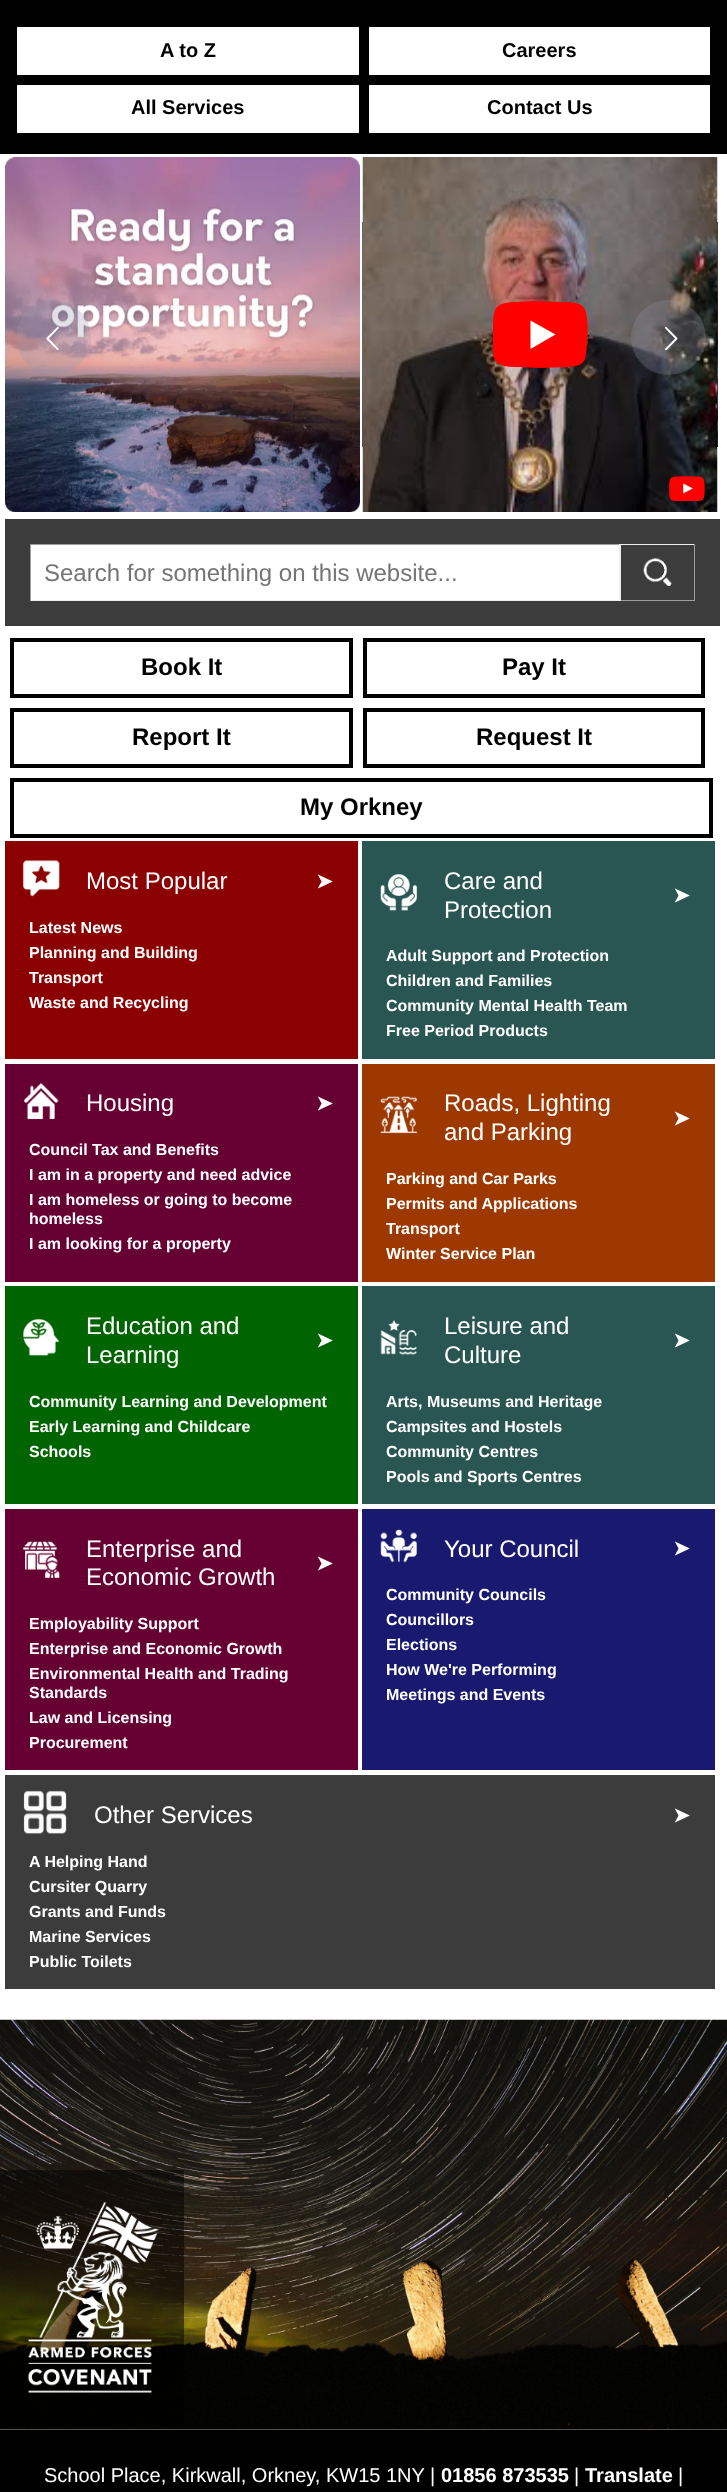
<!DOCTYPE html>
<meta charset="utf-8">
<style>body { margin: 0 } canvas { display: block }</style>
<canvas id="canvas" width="727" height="2492"></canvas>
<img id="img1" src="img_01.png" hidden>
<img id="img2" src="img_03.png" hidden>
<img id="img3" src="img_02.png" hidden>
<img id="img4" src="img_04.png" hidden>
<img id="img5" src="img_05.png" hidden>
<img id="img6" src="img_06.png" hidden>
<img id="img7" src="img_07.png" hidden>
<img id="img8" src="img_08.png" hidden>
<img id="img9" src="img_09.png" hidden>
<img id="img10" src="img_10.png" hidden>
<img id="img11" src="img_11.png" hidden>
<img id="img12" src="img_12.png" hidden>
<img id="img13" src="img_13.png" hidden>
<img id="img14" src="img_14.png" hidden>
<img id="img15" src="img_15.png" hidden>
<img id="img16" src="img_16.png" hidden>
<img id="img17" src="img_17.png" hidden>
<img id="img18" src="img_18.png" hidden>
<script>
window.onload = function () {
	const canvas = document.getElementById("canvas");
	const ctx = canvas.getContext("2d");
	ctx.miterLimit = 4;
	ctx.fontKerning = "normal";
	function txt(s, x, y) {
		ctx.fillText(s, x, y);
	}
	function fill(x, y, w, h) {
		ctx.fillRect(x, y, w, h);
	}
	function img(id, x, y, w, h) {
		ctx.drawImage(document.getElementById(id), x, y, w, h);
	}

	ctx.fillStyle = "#FFFFFF";
	fill(0, 0, 727, 2492);
	ctx.fillStyle = "#000000";
	fill(0, 0, 727, 154);
	ctx.fillStyle = "#FFFFFF";
	fill(17, 27, 342, 48);
	fill(369, 27, 341, 48);
	fill(17, 85, 342, 48);
	fill(369, 85, 341, 48);
	img("img1", 5, 157, 355, 355);
	img("img2", 362, 222, 356, 225);
	img("img3", 362, 157, 356, 355);
	ctx.save();
	ctx.beginPath();
	ctx.rect(493, 301, 95, 68);
	ctx.clip();
	ctx.fillStyle = "#FF0000";
	ctx.beginPath();
	ctx.moveTo(586, 312);
	ctx.bezierCurveTo(585, 308, 582, 305, 579, 304);
	ctx.bezierCurveTo(574, 302, 567, 302, 562, 302);
	ctx.lineTo(535, 301);
	ctx.lineTo(512, 302);
	ctx.bezierCurveTo(494, 304, 494, 309, 493, 326);
	ctx.bezierCurveTo(492, 336, 492, 348, 494, 358);
	ctx.bezierCurveTo(495, 361, 498, 364, 501, 365);
	ctx.bezierCurveTo(506, 367, 513, 367, 518, 367);
	ctx.lineTo(541, 368);
	ctx.lineTo(568, 367);
	ctx.bezierCurveTo(586, 366, 586, 360, 587, 343);
	ctx.bezierCurveTo(588, 333, 588, 322, 586, 312);
	ctx.closePath();
	ctx.fill();
	ctx.restore();
	ctx.beginPath();
	ctx.moveTo(555.5, 334.5);
	ctx.lineTo(530.5, 320.5);
	ctx.lineTo(530.5, 349);
	ctx.closePath();
	ctx.fill();
	img("img4", 669, 476, 36, 25);
	ctx.fillStyle = "rgba(151, 152, 172, 0.27)";
	ctx.beginPath();
	ctx.arc(53.5, 337.5, 37.5, 0, Math.PI * 2);
	ctx.fill();
	img("img5", 46, 326, 13, 24);
	ctx.beginPath();
	ctx.arc(668.5, 337.5, 37.5, 0, Math.PI * 2);
	ctx.fill();
	img("img6", 665, 326, 13, 24);
	ctx.fillStyle = "#3C3C3C";
	fill(5, 519, 715, 107);
	ctx.fillStyle = "#FFFFFF";
	fill(31, 545, 588, 55);
	ctx.fillStyle = "#9F9F9F";
	fill(30, 544, 590, 1);
	ctx.fillStyle = "#EEEEEE";
	fill(619, 544, 1, 57);
	fill(30, 600, 590, 1);
	ctx.fillStyle = "#9F9F9F";
	fill(30, 544, 1, 57);
	img("img7", 643, 558, 29, 28);
	ctx.fillStyle = "#EEEEEE";
	fill(620, 544, 75, 1);
	ctx.fillStyle = "#9F9F9F";
	fill(694, 544, 1, 57);
	fill(620, 600, 75, 1);
	ctx.fillStyle = "#EEEEEE";
	fill(620, 544, 1, 57);
	ctx.strokeStyle = "#000000";
	ctx.lineWidth = 4;
	ctx.strokeRect(12, 640, 339, 56);
	ctx.strokeRect(365, 640, 338, 56);
	ctx.strokeRect(12, 710, 339, 56);
	ctx.strokeRect(365, 710, 338, 56);
	ctx.strokeRect(12, 780, 699, 56);
	ctx.fillStyle = "#8B0000";
	fill(5, 841, 353, 218);
	img("img8", 22, 860, 38, 37);
	ctx.fillStyle = "#295652";
	fill(362, 841, 353, 218);
	img("img9", 380, 873, 38, 38);
	ctx.fillStyle = "#660033";
	fill(5, 1064, 353, 218);
	img("img10", 24, 1083, 35, 37);
	ctx.fillStyle = "#9D3900";
	fill(362, 1064, 353, 218);
	img("img11", 380, 1096, 38, 38);
	ctx.fillStyle = "#006400";
	fill(5, 1286, 353, 218);
	img("img12", 23, 1318, 37, 38);
	ctx.fillStyle = "#295652";
	fill(362, 1286, 353, 218);
	img("img13", 380, 1320, 37, 35);
	ctx.fillStyle = "#660033";
	fill(5, 1509, 353, 261);
	img("img14", 22, 1541, 38, 38);
	ctx.fillStyle = "#191970";
	fill(362, 1509, 353, 261);
	img("img15", 380, 1529, 37, 34);
	ctx.fillStyle = "#3C3C3C";
	fill(5, 1775, 710, 214);
	img("img16", 23, 1790, 44, 44);
	img("img17", 0, 2019, 727, 411);
	ctx.fillStyle = "rgba(0, 0, 0, 0.5)";
	fill(0, 2170, 184, 255);
	img("img18", 27, 2202, 132, 191);
	ctx.fillStyle = "#000000";
	fill(0, 2430, 727, 62);
	ctx.font = "bold 20px Liberation Sans";
	txt("A to Z", 160, 57);
	txt("Careers", 502, 57);
	txt("All Services", 131, 114);
	txt("Contact Us", 487, 114);
	ctx.font = "24px Liberation Sans";
	ctx.fillStyle = "#757575";
	txt("Search for something on this website...", 44, 581);
	ctx.font = "bold 24px Liberation Sans";
	ctx.fillStyle = "#000000";
	txt("Book It", 141, 675);
	txt("Pay It", 502, 675);
	txt("Report It", 132, 745);
	txt("Request It", 476, 745);
	txt("My Orkney", 300, 815);
	ctx.font = "24px Liberation Sans";
	ctx.fillStyle = "#FFFFFF";
	txt("Most Popular", 86, 889);
	ctx.font = "bold 20px DejaVu Sans";
	txt("➤", 316, 888);
	ctx.font = "bold 16px Liberation Sans";
	txt("Latest News", 29, 933);
	txt("Planning and Building", 29, 958);
	txt("Transport", 29, 983);
	txt("Waste and Recycling", 29, 1008);
	ctx.font = "24px Liberation Sans";
	txt("Care and", 444, 889);
	txt("Protection", 444, 918);
	ctx.font = "bold 20px DejaVu Sans";
	txt("➤", 673, 902);
	ctx.font = "bold 16px Liberation Sans";
	txt("Adult Support and Protection", 386, 961);
	txt("Children and Families", 386, 986);
	txt("Community Mental Health Team", 386, 1011);
	txt("Free Period Products", 386, 1036);
	ctx.font = "24px Liberation Sans";
	txt("Housing", 86, 1111);
	ctx.font = "bold 20px DejaVu Sans";
	txt("➤", 316, 1110);
	ctx.font = "bold 16px Liberation Sans";
	txt("Council Tax and Benefits", 29, 1155);
	txt("I am in a property and need advice", 29, 1180);
	txt("I am homeless or going to become", 29, 1205);
	txt("homeless", 29, 1224);
	txt("I am looking for a property", 29, 1249);
	ctx.font = "24px Liberation Sans";
	txt("Roads, Lighting", 444, 1111);
	txt("and Parking", 444, 1140);
	ctx.font = "bold 20px DejaVu Sans";
	txt("➤", 673, 1125);
	ctx.font = "bold 16px Liberation Sans";
	txt("Parking and Car Parks", 386, 1184);
	txt("Permits and Applications", 386, 1209);
	txt("Transport", 386, 1234);
	txt("Winter Service Plan", 386, 1259);
	ctx.font = "24px Liberation Sans";
	txt("Education and", 86, 1334);
	txt("Learning", 86, 1363);
	ctx.font = "bold 20px DejaVu Sans";
	txt("➤", 316, 1347);
	ctx.font = "bold 16px Liberation Sans";
	txt("Community Learning and Development", 29, 1407);
	txt("Early Learning and Childcare", 29, 1432);
	txt("Schools", 29, 1457);
	ctx.font = "24px Liberation Sans";
	txt("Leisure and", 444, 1334);
	txt("Culture", 444, 1363);
	ctx.font = "bold 20px DejaVu Sans";
	txt("➤", 673, 1347);
	ctx.font = "bold 16px Liberation Sans";
	txt("Arts, Museums and Heritage", 386, 1407);
	txt("Campsites and Hostels", 386, 1432);
	txt("Community Centres", 386, 1457);
	txt("Pools and Sports Centres", 386, 1482);
	ctx.font = "24px Liberation Sans";
	txt("Enterprise and", 86, 1557);
	txt("Economic Growth", 86, 1585);
	ctx.font = "bold 20px DejaVu Sans";
	txt("➤", 316, 1570);
	ctx.font = "bold 16px Liberation Sans";
	txt("Employability Support", 29, 1629);
	txt("Enterprise and Economic Growth", 29, 1654);
	txt("Environmental Health and Trading", 29, 1679);
	txt("Standards", 29, 1698);
	txt("Law and Licensing", 29, 1723);
	txt("Procurement", 29, 1748);
	ctx.font = "24px Liberation Sans";
	txt("Your Council", 444, 1557);
	ctx.font = "bold 20px DejaVu Sans";
	txt("➤", 673, 1555);
	ctx.font = "bold 16px Liberation Sans";
	txt("Community Councils", 386, 1600);
	txt("Councillors", 386, 1625);
	txt("Elections", 386, 1650);
	txt("How We're Performing", 386, 1675);
	txt("Meetings and Events", 386, 1700);
	ctx.font = "24px Liberation Sans";
	txt("Other Services", 94, 1823);
	ctx.font = "bold 20px DejaVu Sans";
	txt("➤", 673, 1822);
	ctx.font = "bold 16px Liberation Sans";
	txt("A Helping Hand", 29, 1867);
	txt("Cursiter Quarry", 29, 1892);
	txt("Grants and Funds", 29, 1917);
	txt("Marine Services", 29, 1942);
	txt("Public Toilets", 29, 1967);
	ctx.font = "20px Liberation Sans";
	txt("School Place, Kirkwall, Orkney, KW15 1NY |", 44, 2482);
	ctx.font = "bold 20px Liberation Sans";
	txt("01856 873535", 441, 2482);
	ctx.font = "20px Liberation Sans";
	txt("|", 574, 2482);
	ctx.font = "bold 20px Liberation Sans";
	txt("Translate", 585, 2482);
	ctx.font = "20px Liberation Sans";
	txt("|", 678, 2482);
};
</script>
